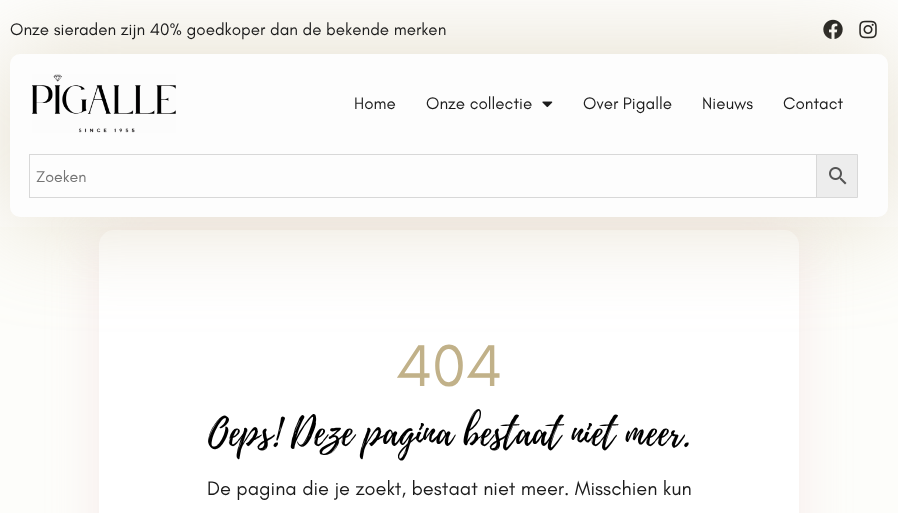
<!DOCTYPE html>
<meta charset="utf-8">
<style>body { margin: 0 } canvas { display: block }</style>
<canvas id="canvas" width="898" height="513"></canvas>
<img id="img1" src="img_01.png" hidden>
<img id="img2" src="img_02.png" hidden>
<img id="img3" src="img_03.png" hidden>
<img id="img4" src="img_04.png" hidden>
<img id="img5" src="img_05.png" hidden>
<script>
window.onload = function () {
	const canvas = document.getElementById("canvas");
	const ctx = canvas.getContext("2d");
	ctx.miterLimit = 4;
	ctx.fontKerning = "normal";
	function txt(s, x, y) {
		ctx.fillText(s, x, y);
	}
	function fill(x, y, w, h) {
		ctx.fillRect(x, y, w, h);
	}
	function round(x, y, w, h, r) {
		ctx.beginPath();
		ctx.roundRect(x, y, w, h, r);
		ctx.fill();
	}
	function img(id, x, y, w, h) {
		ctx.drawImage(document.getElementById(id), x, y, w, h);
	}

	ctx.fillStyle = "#FEFEFD";
	fill(0, 0, 898, 513);
	img("img1", 823, 19, 20, 20);
	img("img2", 859, 20, 18, 19);
	ctx.fillStyle = "#FDFDFA";
	fill(0, 227, 898, 286);
	ctx.fillStyle = "rgba(232, 194, 202, 0.31)";
	ctx.filter = "blur(25px)";
	ctx.beginPath();
	ctx.roundRect(99, 230, 700, 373, 15);
	ctx.fill();
	ctx.filter = "none";
	ctx.fillStyle = "#FFFFFF";
	round(99, 230, 700, 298, 15);
	ctx.fillStyle = "rgba(193, 177, 137, 0.42)";
	ctx.filter = "blur(50px)";
	ctx.beginPath();
	ctx.roundRect(8, 52, 882, 167, 12);
	ctx.fill();
	ctx.filter = "none";
	ctx.fillStyle = "#FDFDFD";
	round(10, 54, 878, 163, 10);
	img("img3", 32, 74, 144, 59);
	img("img4", 542, 101, 11, 7);
	ctx.fillStyle = "#EDEDED";
	ctx.beginPath();
	ctx.rect(816.5, 154.5, 41, 43);
	ctx.fill();
	ctx.strokeStyle = "#D8D8D8";
	ctx.stroke();
	ctx.strokeRect(29.5, 154.5, 787, 43);
	img("img5", 829, 167, 18, 18);
	ctx.font = "17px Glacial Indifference";
	ctx.fillStyle = "#1B1B1B";
	txt("Onze sieraden zijn 40% goedkoper dan de bekende merken", 10, 35);
	txt("Home", 354, 109);
	txt("Onze collectie", 426, 109);
	txt("Over Pigalle", 583, 109);
	txt("Nieuws", 702, 109);
	txt("Contact", 783, 109);
	ctx.font = "16px Glacial Indifference";
	ctx.fillStyle = "#757575";
	txt("Zoeken", 36, 182);
	ctx.font = "60px Glacial Indifference";
	ctx.fillStyle = "#C1B189";
	txt("404", 396, 386);
	ctx.font = "38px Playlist";
	ctx.fillStyle = "#000000";
	txt("Oeps! Deze pagina bestaat niet meer.", 208, 444);
	ctx.font = "20px Glacial Indifference";
	ctx.fillStyle = "#1B1B1B";
	txt("De pagina die je zoekt, bestaat niet meer. Misschien kun", 207, 495);
};
</script>
